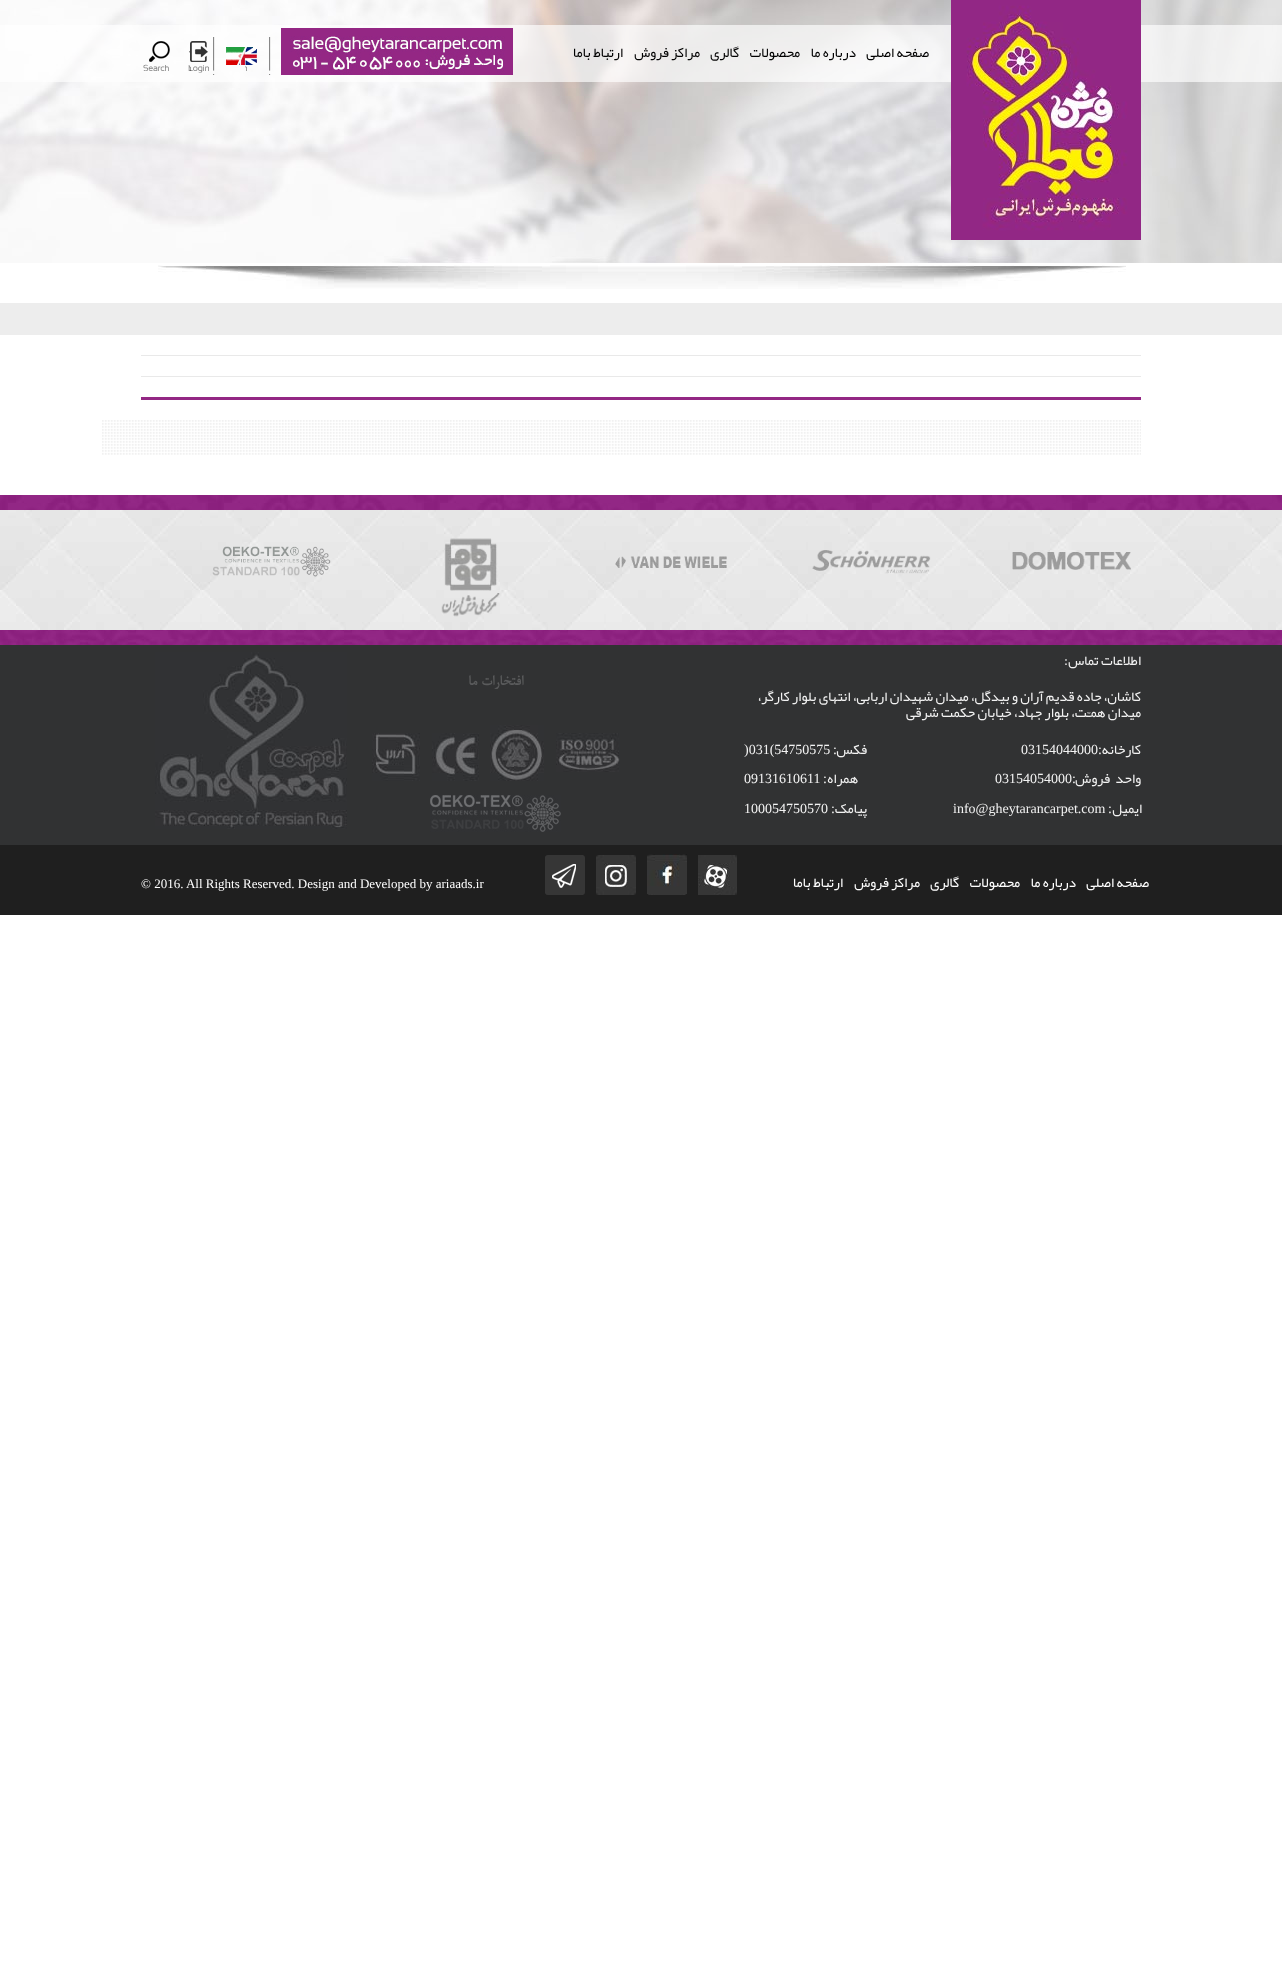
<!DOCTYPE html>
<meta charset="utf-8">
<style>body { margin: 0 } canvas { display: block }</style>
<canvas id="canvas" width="1282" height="1970"></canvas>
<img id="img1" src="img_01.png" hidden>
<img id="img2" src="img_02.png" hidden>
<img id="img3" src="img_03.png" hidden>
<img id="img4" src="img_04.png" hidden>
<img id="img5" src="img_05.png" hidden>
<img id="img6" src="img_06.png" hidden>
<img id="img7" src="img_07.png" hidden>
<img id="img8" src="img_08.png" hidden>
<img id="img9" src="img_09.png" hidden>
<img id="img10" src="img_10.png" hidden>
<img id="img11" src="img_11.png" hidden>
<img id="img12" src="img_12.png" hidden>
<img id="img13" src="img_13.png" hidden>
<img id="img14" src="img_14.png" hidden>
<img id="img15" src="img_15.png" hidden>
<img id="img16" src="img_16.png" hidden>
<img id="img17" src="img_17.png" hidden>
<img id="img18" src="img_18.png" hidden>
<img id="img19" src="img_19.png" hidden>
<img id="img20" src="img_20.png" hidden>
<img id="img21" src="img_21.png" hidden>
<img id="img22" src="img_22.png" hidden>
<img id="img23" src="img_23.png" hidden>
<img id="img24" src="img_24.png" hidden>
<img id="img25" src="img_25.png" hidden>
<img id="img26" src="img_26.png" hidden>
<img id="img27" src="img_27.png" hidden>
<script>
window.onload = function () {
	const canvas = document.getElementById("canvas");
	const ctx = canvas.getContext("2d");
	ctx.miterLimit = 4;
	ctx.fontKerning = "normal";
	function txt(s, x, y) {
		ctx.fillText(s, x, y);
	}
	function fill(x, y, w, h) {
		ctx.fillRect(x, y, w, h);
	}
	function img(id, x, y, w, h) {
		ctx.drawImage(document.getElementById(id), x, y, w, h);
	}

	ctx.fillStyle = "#FFFFFF";
	fill(0, 0, 1282, 1970);
	img("img1", 0, 0, 1282, 263);
	ctx.fillStyle = "rgba(255, 255, 255, 0.66)";
	fill(0, 25, 1282, 57);
	img("img2", 951, 0, 190, 240);
	img("img3", 281, 28, 232, 47);
	img("img4", 245, 37, 26, 38);
	img("img5", 189, 37, 26, 38);
	img("img6", 143, 41, 27, 30);
	img("img7", 226, 47, 31, 18);
	img("img8", 188, 41, 21, 32);
	img("img9", 158, 265, 968, 24);
	ctx.fillStyle = "#EDEDED";
	fill(0, 303, 1282, 32);
	ctx.fillStyle = "#E9E9E9";
	fill(141, 355, 1000, 1);
	fill(141, 376, 1000, 1);
	ctx.fillStyle = "#932784";
	fill(141, 397, 1000, 3);
	img("img10", 102, 420, 1039, 35);
	img("img11", 0, 495, 1282, 150);
	img("img12", 0, 510, 1282, 120);
	img("img13", 1012, 552, 119, 18);
	img("img14", 812, 550, 119, 24);
	img("img15", 615, 556, 112, 12);
	img("img16", 441, 538, 59, 79);
	img("img17", 212, 546, 119, 31);
	ctx.fillStyle = "#313233";
	fill(0, 645, 1282, 200);
	img("img18", 556, 733, 64, 39);
	img("img19", 490, 725, 54, 56);
	img("img20", 432, 733, 47, 48);
	img("img21", 372, 733, 48, 48);
	img("img22", 430, 795, 131, 37);
	img("img23", 155, 652, 192, 177);
	ctx.fillStyle = "#1F1F1F";
	fill(0, 845, 1282, 70);
	img("img24", 698, 855, 39, 40);
	img("img25", 647, 854, 40, 41);
	img("img26", 596, 855, 40, 40);
	img("img27", 545, 855, 40, 40);
	ctx.direction = "rtl";
	ctx.font = "14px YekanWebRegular";
	ctx.fillStyle = "#000000";
	txt("صفحه اصلی", 929, 57);
	txt("درباره ما", 856, 57);
	txt("محصولات", 800, 57);
	txt("گالری", 739, 57);
	txt("مراکز فروش", 700, 57);
	txt("ارتباط باما", 623, 57);
	ctx.fillStyle = "#F2F2F2";
	txt("اطلاعات تماس:", 1141, 665);
	txt("کاشان، جاده قدیم آران و بیدگل، میدان شهیدان اربابی، انتهای بلوار کارگر،", 1141, 701);
	txt("میدان همـّت، بلوار جهاد، خیابان حکمت شرقی", 1141, 717);
	txt("کارخانه", 1141, 754);
	ctx.font = "14px Liberation Serif";
	txt(":", 1102, 754);
	ctx.direction = "ltr";
	txt("03154044000", 1021, 754);
	ctx.direction = "rtl";
	ctx.font = "14px YekanWebRegular";
	txt("فکس", 867, 754);
	ctx.font = "14px Liberation Serif";
	txt(":", 837, 754);
	ctx.direction = "ltr";
	txt(")031(54750575", 744, 754);
	ctx.direction = "rtl";
	ctx.font = "14px YekanWebRegular";
	txt("واحد", 1141, 783);
	txt("فروش", 1110, 783);
	ctx.font = "14px Liberation Serif";
	txt(":", 1076, 783);
	ctx.direction = "ltr";
	txt("03154054000", 995, 783);
	ctx.direction = "rtl";
	ctx.font = "14px YekanWebRegular";
	txt("همراه", 858, 783);
	ctx.font = "14px Liberation Serif";
	txt(":", 827, 783);
	ctx.direction = "ltr";
	txt("09131610611", 744, 783);
	ctx.direction = "rtl";
	ctx.font = "14px YekanWebRegular";
	txt("ایمیل", 1142, 813);
	ctx.font = "14px Liberation Serif";
	txt(":", 1112, 813);
	ctx.direction = "ltr";
	txt("info@gheytarancarpet.com", 953, 813);
	ctx.direction = "rtl";
	ctx.font = "14px YekanWebRegular";
	txt("پیامک", 867, 813);
	ctx.font = "14px Liberation Serif";
	txt(":", 835, 813);
	ctx.direction = "ltr";
	txt("100054750570", 744, 813);
	ctx.direction = "rtl";
	ctx.font = "bold 16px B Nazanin";
	ctx.fillStyle = "#5A5B5C";
	txt("افتخارات ما", 523, 685);
	ctx.font = "14px YekanWebRegular";
	ctx.fillStyle = "#FFFFFF";
	txt("صفحه اصلی", 1149, 887);
	txt("درباره ما", 1076, 887);
	txt("محصولات", 1020, 887);
	txt("گالری", 959, 887);
	txt("مراکز فروش", 920, 887);
	txt("ارتباط باما", 843, 887);
	ctx.direction = "ltr";
	ctx.font = "13px Liberation Serif";
	txt("© 2016. All Rights Reserved. Design and Developed by ariaads.ir", 141, 888);
};
</script>
